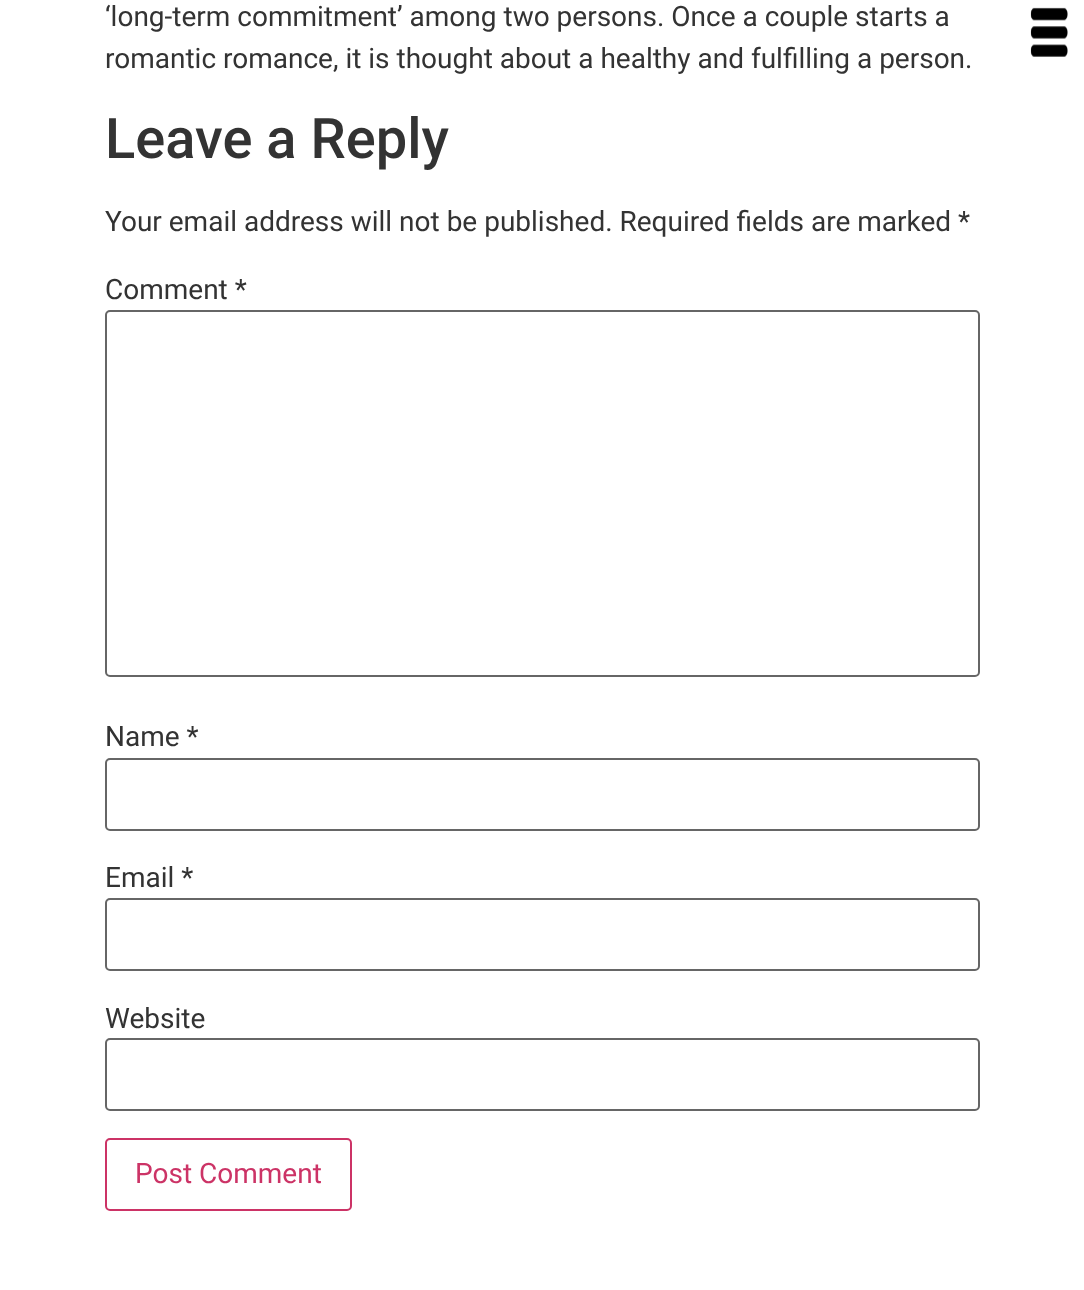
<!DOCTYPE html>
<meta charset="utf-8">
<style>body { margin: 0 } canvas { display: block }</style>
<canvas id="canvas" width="1084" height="1290"></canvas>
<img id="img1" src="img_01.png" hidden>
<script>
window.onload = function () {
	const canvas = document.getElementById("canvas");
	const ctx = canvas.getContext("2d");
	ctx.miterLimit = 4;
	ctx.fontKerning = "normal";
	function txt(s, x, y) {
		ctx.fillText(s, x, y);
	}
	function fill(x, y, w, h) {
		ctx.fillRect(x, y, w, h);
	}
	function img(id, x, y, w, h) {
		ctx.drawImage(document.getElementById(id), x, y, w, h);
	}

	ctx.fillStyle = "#FFFFFF";
	fill(0, 0, 1084, 1290);
	ctx.beginPath();
	ctx.roundRect(106, 311, 873, 365, 4);
	ctx.strokeStyle = "#666666";
	ctx.lineWidth = 2;
	ctx.stroke();
	ctx.beginPath();
	ctx.roundRect(106, 759, 873, 71, 4);
	ctx.stroke();
	ctx.beginPath();
	ctx.roundRect(106, 899, 873, 71, 4);
	ctx.stroke();
	ctx.beginPath();
	ctx.roundRect(106, 1039, 873, 71, 4);
	ctx.stroke();
	ctx.beginPath();
	ctx.roundRect(106, 1139, 245, 71, 4);
	ctx.strokeStyle = "#CC3366";
	ctx.stroke();
	img("img1", 1030, 7, 38, 50);
	ctx.font = "28px Roboto";
	ctx.fillStyle = "#333333";
	txt("‘long-term commitment’ among two persons. Once a couple starts a", 105, 26);
	txt("romantic romance, it is thought about a healthy and fulfilling a person.", 105, 68);
	ctx.font = "500 56px Roboto";
	txt("Leave a Reply", 105, 158);
	ctx.font = "28px Roboto";
	txt("Your email address will not be published. Required fields are marked *", 105, 231);
	txt("Comment *", 105, 299);
	txt("Name *", 105, 746);
	txt("Email *", 105, 887);
	txt("Website", 105, 1028);
	ctx.fillStyle = "#CC3366";
	txt("Post Comment", 135, 1183);
};
</script>
